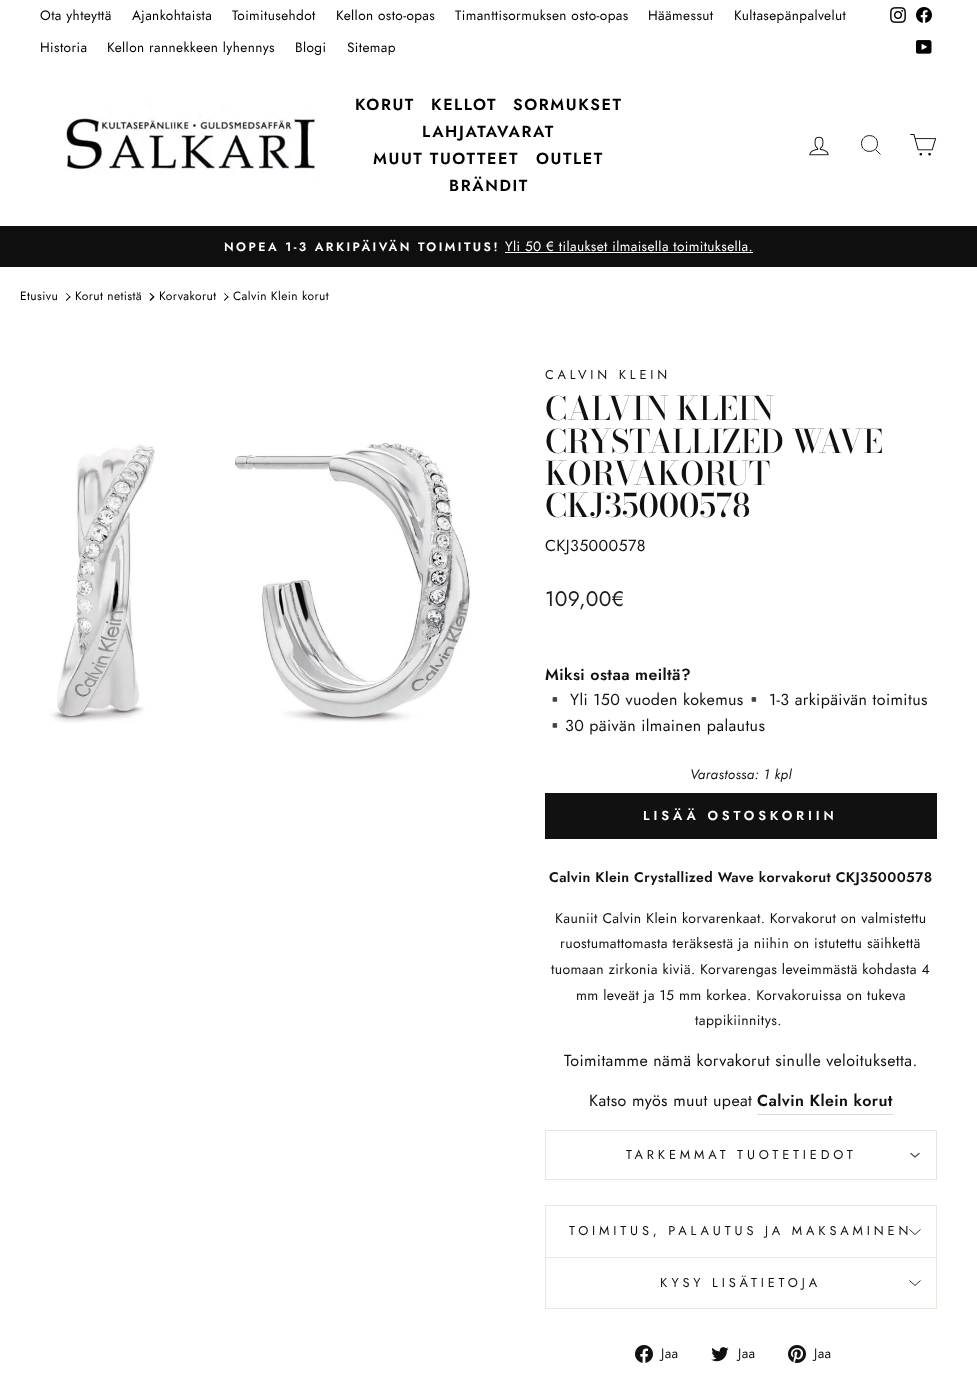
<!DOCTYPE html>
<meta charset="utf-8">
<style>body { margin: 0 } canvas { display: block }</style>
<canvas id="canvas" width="977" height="1399"></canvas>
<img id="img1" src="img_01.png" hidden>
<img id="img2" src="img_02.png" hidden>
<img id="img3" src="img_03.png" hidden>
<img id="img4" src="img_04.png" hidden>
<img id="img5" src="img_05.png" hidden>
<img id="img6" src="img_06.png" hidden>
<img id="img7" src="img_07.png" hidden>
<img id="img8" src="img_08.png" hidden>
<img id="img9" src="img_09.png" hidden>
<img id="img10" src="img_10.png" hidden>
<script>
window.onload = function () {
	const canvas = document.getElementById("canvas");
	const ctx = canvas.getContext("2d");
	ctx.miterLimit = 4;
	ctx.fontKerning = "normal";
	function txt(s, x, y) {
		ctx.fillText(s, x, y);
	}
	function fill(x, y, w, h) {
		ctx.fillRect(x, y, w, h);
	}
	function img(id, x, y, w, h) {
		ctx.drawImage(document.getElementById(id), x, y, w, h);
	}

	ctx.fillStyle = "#FFFFFF";
	fill(0, 0, 977, 1399);
	img("img1", 890, 7, 16, 16);
	img("img2", 916, 7, 16, 16);
	img("img3", 916, 40, 16, 14);
	img("img4", 64, 101, 254, 80);
	img("img5", 809, 136, 20, 20);
	ctx.beginPath();
	ctx.moveTo(877.5, 143.5);
	ctx.bezierCurveTo(877.5, 154, 861.5, 154, 861.5, 143.5);
	ctx.bezierCurveTo(861.5, 133, 877.5, 133, 877.5, 143.5);
	ctx.closePath();
	ctx.moveTo(880.5, 154.5);
	ctx.lineTo(875.5, 149.5);
	ctx.strokeStyle = "#000000";
	ctx.lineWidth = 0.9;
	ctx.stroke();
	img("img6", 910, 134, 27, 22);
	ctx.fillStyle = "#0F0F0F";
	fill(0, 226, 977, 41);
	ctx.fillStyle = "#FFFFFF";
	fill(505, 252, 248, 1);
	ctx.fillStyle = "#000000";
	ctx.beginPath();
	ctx.moveTo(66.5, 293);
	ctx.lineTo(70.5, 297);
	ctx.lineTo(70, 297.5);
	ctx.lineTo(66, 293.5);
	ctx.closePath();
	ctx.fill();
	ctx.beginPath();
	ctx.moveTo(70, 296);
	ctx.lineTo(70.5, 297);
	ctx.lineTo(66.5, 301);
	ctx.lineTo(66, 300);
	ctx.closePath();
	ctx.fill();
	ctx.beginPath();
	ctx.moveTo(150.5, 293);
	ctx.lineTo(154.5, 297);
	ctx.lineTo(153.5, 297.5);
	ctx.lineTo(149.5, 293.5);
	ctx.closePath();
	ctx.fill();
	ctx.beginPath();
	ctx.moveTo(153.5, 296);
	ctx.lineTo(154.5, 297);
	ctx.lineTo(150.5, 301);
	ctx.lineTo(149.5, 300);
	ctx.closePath();
	ctx.fill();
	ctx.beginPath();
	ctx.moveTo(224.5, 293);
	ctx.lineTo(228.5, 297);
	ctx.lineTo(228, 297.5);
	ctx.lineTo(224, 293.5);
	ctx.closePath();
	ctx.fill();
	ctx.beginPath();
	ctx.moveTo(228, 296);
	ctx.lineTo(228.5, 297);
	ctx.lineTo(224.5, 301);
	ctx.lineTo(224, 300);
	ctx.closePath();
	ctx.fill();
	img("img7", 49, 442, 422, 281);
	ctx.fillStyle = "#111111";
	fill(545, 793, 392, 46);
	ctx.fillStyle = "#DBDBDB";
	fill(757, 1114, 136, 1);
	ctx.strokeStyle = "#E5E5E5";
	ctx.lineWidth = 1;
	ctx.strokeRect(545.5, 1130.5, 391, 49);
	ctx.beginPath();
	ctx.moveTo(911, 1153.5);
	ctx.lineTo(915, 1157);
	ctx.lineTo(919, 1153.5);
	ctx.strokeStyle = "#585858";
	ctx.lineWidth = 1.5;
	ctx.lineCap = "round";
	ctx.lineJoin = "round";
	ctx.stroke();
	ctx.fillStyle = "#E8E8E1";
	fill(545, 1257, 392, 1);
	fill(545, 1205, 392, 1);
	fill(936, 1205, 1, 52);
	fill(545, 1205, 1, 52);
	ctx.beginPath();
	ctx.moveTo(909.5, 1229.5);
	ctx.lineTo(915, 1234.5);
	ctx.lineTo(920.5, 1229.5);
	ctx.strokeStyle = "#111111";
	ctx.lineWidth = 0.9;
	ctx.lineCap = "butt";
	ctx.lineJoin = "miter";
	ctx.stroke();
	fill(545, 1308, 392, 1);
	fill(936, 1258, 1, 50);
	fill(545, 1258, 1, 50);
	ctx.beginPath();
	ctx.moveTo(909.5, 1280.5);
	ctx.lineTo(915, 1285.5);
	ctx.lineTo(920.5, 1280.5);
	ctx.stroke();
	img("img8", 635, 1345, 18, 18);
	img("img9", 711, 1347, 18, 15);
	img("img10", 788, 1345, 18, 18);
	ctx.letterSpacing = "0.4px";
	ctx.font = "13.6px Jost";
	ctx.fillStyle = "#000000";
	txt("Ota yhteyttä", 40, 20);
	txt("Ajankohtaista", 132, 20);
	txt("Toimitusehdot", 232, 20);
	txt("Kellon osto-opas", 336, 20);
	txt("Timanttisormuksen osto-opas", 455, 20);
	txt("Häämessut", 648, 20);
	txt("Kultasepänpalvelut", 734, 20);
	txt("Historia", 40, 52);
	txt("Kellon rannekkeen lyhennys", 107, 52);
	txt("Blogi", 295, 52);
	txt("Sitemap", 347, 52);
	ctx.letterSpacing = "1.6px";
	ctx.font = "600 16px Jost";
	txt("KORUT", 355, 110);
	txt("KELLOT", 431, 110);
	txt("SORMUKSET", 513, 110);
	txt("LAHJATAVARAT", 422, 137);
	txt("MUUT TUOTTEET", 373, 164);
	txt("OUTLET", 536, 164);
	txt("BRÄNDIT", 449, 191);
	ctx.letterSpacing = "2.45px";
	ctx.font = "600 12.25px Jost";
	ctx.fillStyle = "#FFFFFF";
	txt("NOPEA 1-3 ARKIPÄIVÄN TOIMITUS!", 224, 251);
	ctx.letterSpacing = "0.4px";
	ctx.font = "13.6px Jost";
	txt("Yli 50 € tilaukset ilmaisella toimituksella.", 505, 251);
	ctx.font = "12px Jost";
	ctx.fillStyle = "#000000";
	txt("Etusivu", 20, 300);
	txt("Korut netistä", 75, 300);
	txt("Korvakorut", 159, 300);
	txt("Calvin Klein korut", 233, 300);
	ctx.letterSpacing = "3.85px";
	ctx.font = "12.8px Jost";
	ctx.fillStyle = "#111111";
	txt("CALVIN KLEIN", 545, 379);
	ctx.letterSpacing = "0px";
	ctx.font = "500 32.25px Bodoni Moda";
	txt("CALVIN KLEIN", 545, 420);
	txt("CRYSTALLIZED WAVE", 545, 453);
	txt("KORVAKORUT", 545, 485);
	txt("CKJ35000578", 545, 517);
	ctx.letterSpacing = "0.4px";
	ctx.font = "16px Jost";
	txt("CKJ35000578", 545, 551);
	ctx.font = "21px Jost";
	ctx.fillStyle = "#1C1D1D";
	txt("109,00€", 545, 606);
	ctx.font = "600 16px Jost";
	ctx.fillStyle = "#111111";
	txt("Miksi ostaa meiltä?", 545, 680);
	ctx.font = "16px Noto Color Emoji";
	txt("▪️", 545, 705);
	ctx.font = "16px Jost";
	txt("Yli 150 vuoden kokemus", 570, 705);
	ctx.font = "16px Noto Color Emoji";
	txt("▪️", 744, 705);
	ctx.font = "16px Jost";
	txt("1-3 arkipäivän toimitus", 769, 705);
	ctx.font = "16px Noto Color Emoji";
	txt("▪️", 545, 731);
	ctx.font = "16px Jost";
	txt("30 päivän ilmainen palautus", 565, 731);
	ctx.font = "italic 13.6px Jost";
	txt("Varastossa: 1 kpl", 690, 779);
	ctx.letterSpacing = "3.9px";
	ctx.font = "600 13px Jost";
	ctx.fillStyle = "#FFFFFF";
	txt("LISÄÄ OSTOSKORIIN", 643, 820);
	ctx.letterSpacing = "0.4px";
	ctx.font = "600 14px Jost";
	ctx.fillStyle = "#111111";
	txt("Calvin Klein Crystallized Wave korvakorut CKJ35000578", 549, 882);
	ctx.font = "14px Jost";
	txt("Kauniit Calvin Klein korvarenkaat. Korvakorut on valmistettu", 555, 923);
	txt("ruostumattomasta teräksestä ja niihin on istutettu säihkettä", 560, 948);
	txt("tuomaan zirkonia kiviä. Korvarengas leveimmästä kohdasta 4", 551, 974);
	txt("mm leveät ja 15 mm korkea. Korvakoruissa on tukeva", 576, 1000);
	txt("tappikiinnitys.", 695, 1025);
	ctx.font = "16px Jost";
	txt("Toimitamme nämä korvakorut sinulle veloituksetta.", 564, 1066);
	txt("Katso myös muut upeat", 589, 1106);
	ctx.font = "600 16px Jost";
	txt("Calvin Klein korut", 757, 1106);
	ctx.letterSpacing = "3.85px";
	ctx.font = "12.8px Jost";
	txt("TARKEMMAT TUOTETIEDOT", 626, 1159);
	txt("TOIMITUS, PALAUTUS JA MAKSAMINEN", 569, 1235);
	txt("KYSY LISÄTIETOJA", 660, 1287);
	ctx.letterSpacing = "0.4px";
	ctx.font = "13.6px Jost";
	txt("Jaa", 661, 1358);
	txt("Jaa", 738, 1358);
	txt("Jaa", 814, 1358);
};
</script>
